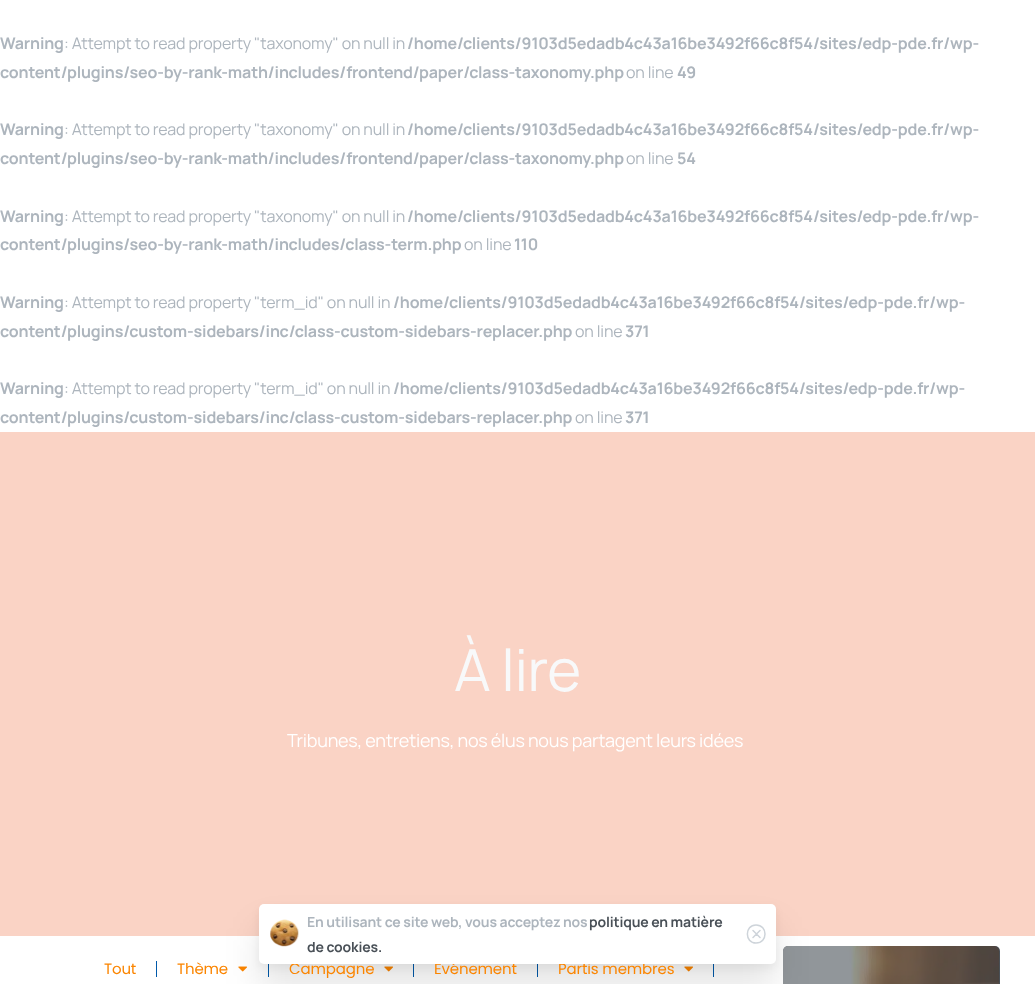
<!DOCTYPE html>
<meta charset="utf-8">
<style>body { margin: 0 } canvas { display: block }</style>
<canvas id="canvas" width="1035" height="984"></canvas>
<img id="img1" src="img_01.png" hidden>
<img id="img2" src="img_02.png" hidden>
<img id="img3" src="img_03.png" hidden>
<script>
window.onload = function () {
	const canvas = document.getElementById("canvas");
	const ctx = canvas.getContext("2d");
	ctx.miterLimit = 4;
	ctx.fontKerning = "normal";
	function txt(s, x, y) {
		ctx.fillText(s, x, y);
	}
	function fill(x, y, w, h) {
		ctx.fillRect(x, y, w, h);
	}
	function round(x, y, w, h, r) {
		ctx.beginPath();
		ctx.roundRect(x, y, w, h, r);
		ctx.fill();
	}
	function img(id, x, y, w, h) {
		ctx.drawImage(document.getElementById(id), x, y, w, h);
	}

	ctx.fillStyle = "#FFFFFF";
	fill(0, 0, 1035, 984);
	ctx.fillStyle = "#FAD3C5";
	fill(0, 432, 1035, 504);
	ctx.fillStyle = "#015AAA";
	fill(156, 961, 1, 16);
	img("img1", 238, 966, 9, 6);
	fill(268, 961, 1, 16);
	img("img1", 384, 966, 9, 6);
	fill(413, 961, 1, 16);
	fill(537, 961, 1, 16);
	img("img1", 684, 966, 9, 6);
	fill(713, 961, 1, 16);
	ctx.fillStyle = "#495057";
	round(783, 946, 217, 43, 5);
	img("img2", 783, 946, 216, 38);
	ctx.fillStyle = "rgba(0, 0, 0, 0.1)";
	ctx.filter = "blur(17.5px)";
	ctx.beginPath();
	ctx.roundRect(259, 928, 517, 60, 5);
	ctx.fill();
	ctx.filter = "none";
	ctx.fillStyle = "rgba(0, 0, 0, 0.05)";
	ctx.filter = "blur(4px)";
	ctx.beginPath();
	ctx.roundRect(259, 908, 517, 60, 5);
	ctx.fill();
	ctx.filter = "none";
	ctx.letterSpacing = "-0.15px";
	ctx.font = "bold 16px Manrope";
	ctx.fillStyle = "#ADB5BD";
	txt("Warning", 0, 49);
	ctx.font = "200 16px Manrope";
	txt(": Attempt to read property \"taxonomy\" on null in", 64, 49);
	ctx.font = "bold 16px Manrope";
	txt("/home/clients/9103d5edadb4c43a16be3492f66c8f54/sites/edp-pde.fr/wp-", 407, 49);
	txt("content/plugins/seo-by-rank-math/includes/frontend/paper/class-taxonomy.php", 0, 78);
	ctx.font = "200 16px Manrope";
	txt("on line", 626, 78);
	ctx.font = "bold 16px Manrope";
	txt("49", 677, 78);
	txt("Warning", 0, 135);
	ctx.font = "200 16px Manrope";
	txt(": Attempt to read property \"taxonomy\" on null in", 64, 135);
	ctx.font = "bold 16px Manrope";
	txt("/home/clients/9103d5edadb4c43a16be3492f66c8f54/sites/edp-pde.fr/wp-", 407, 135);
	txt("content/plugins/seo-by-rank-math/includes/frontend/paper/class-taxonomy.php", 0, 164);
	ctx.font = "200 16px Manrope";
	txt("on line", 626, 164);
	ctx.font = "bold 16px Manrope";
	txt("54", 677, 164);
	txt("Warning", 0, 222);
	ctx.font = "200 16px Manrope";
	txt(": Attempt to read property \"taxonomy\" on null in", 64, 222);
	ctx.font = "bold 16px Manrope";
	txt("/home/clients/9103d5edadb4c43a16be3492f66c8f54/sites/edp-pde.fr/wp-", 407, 222);
	txt("content/plugins/seo-by-rank-math/includes/class-term.php", 0, 250);
	ctx.font = "200 16px Manrope";
	txt("on line", 464, 250);
	ctx.font = "bold 16px Manrope";
	txt("110", 514, 250);
	txt("Warning", 0, 308);
	ctx.font = "200 16px Manrope";
	txt(": Attempt to read property \"term_id\" on null in", 64, 308);
	ctx.font = "bold 16px Manrope";
	txt("/home/clients/9103d5edadb4c43a16be3492f66c8f54/sites/edp-pde.fr/wp-", 393, 308);
	txt("content/plugins/custom-sidebars/inc/class-custom-sidebars-replacer.php", 0, 337);
	ctx.font = "200 16px Manrope";
	txt("on line", 575, 337);
	ctx.font = "bold 16px Manrope";
	txt("371", 625, 337);
	txt("Warning", 0, 394);
	ctx.font = "200 16px Manrope";
	txt(": Attempt to read property \"term_id\" on null in", 64, 394);
	ctx.font = "bold 16px Manrope";
	txt("/home/clients/9103d5edadb4c43a16be3492f66c8f54/sites/edp-pde.fr/wp-", 393, 394);
	txt("content/plugins/custom-sidebars/inc/class-custom-sidebars-replacer.php", 0, 423);
	ctx.font = "200 16px Manrope";
	txt("on line", 575, 423);
	ctx.font = "bold 16px Manrope";
	txt("371", 625, 423);
	ctx.letterSpacing = "-0.5px";
	ctx.font = "200 58px Manrope";
	ctx.fillStyle = "#F8F9FA";
	txt("À lire", 454, 691);
	ctx.letterSpacing = "-0.25px";
	ctx.font = "200 18px Manrope";
	ctx.fillStyle = "#FFFFFF";
	txt("Tribunes, entretiens, nos élus nous partagent leurs idées", 287, 747);
	ctx.letterSpacing = "-0.15px";
	ctx.font = "15px Poppins";
	ctx.fillStyle = "#FB8500";
	txt("Tout", 104, 974);
	txt("Thème", 177, 974);
	txt("Campagne", 289, 974);
	txt("Événement", 434, 974);
	txt("Partis membres", 558, 974);
	ctx.fillStyle = "#FFFFFF";
	round(259, 904, 517, 60, 5);
	img("img3", 270, 919, 29, 28);
	ctx.font = "bold 14px Manrope";
	ctx.fillStyle = "#ADB5BD";
	txt("En utilisant ce site web, vous acceptez nos", 307, 927);
	ctx.fillStyle = "#495057";
	txt("politique en matière", 589, 927);
	txt("de cookies.", 307, 952);
	ctx.beginPath();
	ctx.moveTo(756, 943);
	ctx.bezierCurveTo(768, 943, 768, 925, 756, 925);
	ctx.bezierCurveTo(744.5, 925, 744.5, 943, 756, 943);
	ctx.closePath();
	ctx.moveTo(760, 930.5);
	ctx.lineTo(753, 937.5);
	ctx.moveTo(753, 930.5);
	ctx.lineTo(760, 937.5);
	ctx.strokeStyle = "#CED4DA";
	ctx.lineWidth = 1.5;
	ctx.lineCap = "round";
	ctx.lineJoin = "round";
	ctx.stroke();
};
</script>
